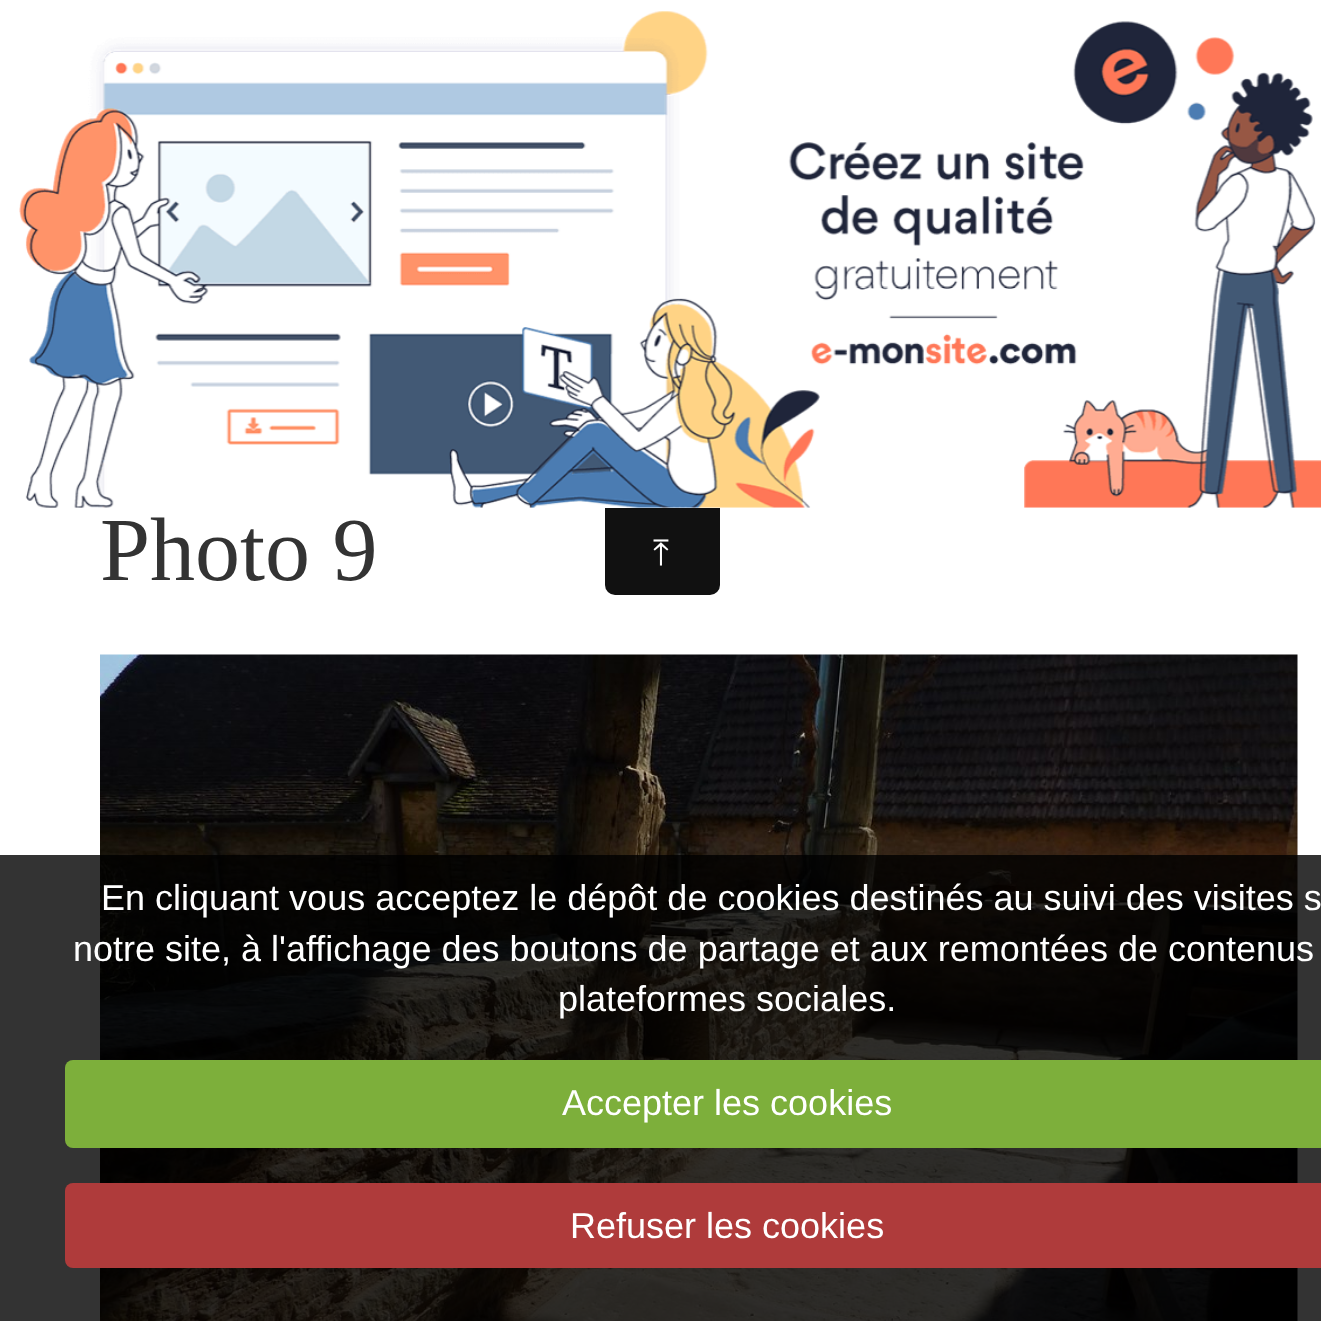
<!DOCTYPE html>
<meta charset="utf-8">
<style>body { margin: 0 } canvas { display: block }</style>
<canvas id="canvas" width="1321" height="1321"></canvas>
<img id="img1" src="img_01.png" hidden>
<img id="img2" src="img_02.png" hidden>
<script>
window.onload = function () {
	const canvas = document.getElementById("canvas");
	const ctx = canvas.getContext("2d");
	ctx.miterLimit = 4;
	ctx.fontKerning = "normal";
	function txt(s, x, y) {
		ctx.fillText(s, x, y);
	}
	function fill(x, y, w, h) {
		ctx.fillRect(x, y, w, h);
	}
	function round(x, y, w, h, r) {
		ctx.beginPath();
		ctx.roundRect(x, y, w, h, r);
		ctx.fill();
	}
	function img(id, x, y, w, h) {
		ctx.drawImage(document.getElementById(id), x, y, w, h);
	}

	ctx.fillStyle = "#FFFFFF";
	fill(0, 0, 1321, 1321);
	img("img1", 100, 654, 1198, 667);
	img("img2", 19, 11, 1302, 497);
	ctx.fillStyle = "#111111";
	ctx.beginPath();
	ctx.roundRect(605, 508, 115, 87, [0, 0, 10, 10]);
	ctx.fill();
	ctx.fillStyle = "rgba(0, 0, 0, 0.8)";
	fill(0, 855, 1321, 466);
	ctx.fillStyle = "#7DAF3B";
	round(65, 1060, 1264, 88, 8);
	ctx.fillStyle = "#AF3B3B";
	round(65, 1183, 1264, 85, 8);
	ctx.font = "90px Liberation Serif";
	ctx.fillStyle = "#333333";
	txt("Photo 9", 100, 580);
	ctx.font = "36px FreeSerif";
	ctx.fillStyle = "#FFFFFF";
	txt("⤒", 653, 565);
	ctx.font = "36px Liberation Sans";
	txt("En cliquant vous acceptez le dépôt de cookies destinés au suivi des visites s", 101, 910);
	txt("notre site, à l'affichage des boutons de partage et aux remontées de contenus", 73, 961);
	txt("plateformes sociales.", 558, 1011);
	txt("Accepter les cookies", 562, 1115);
	txt("Refuser les cookies", 570, 1238);
};
</script>
